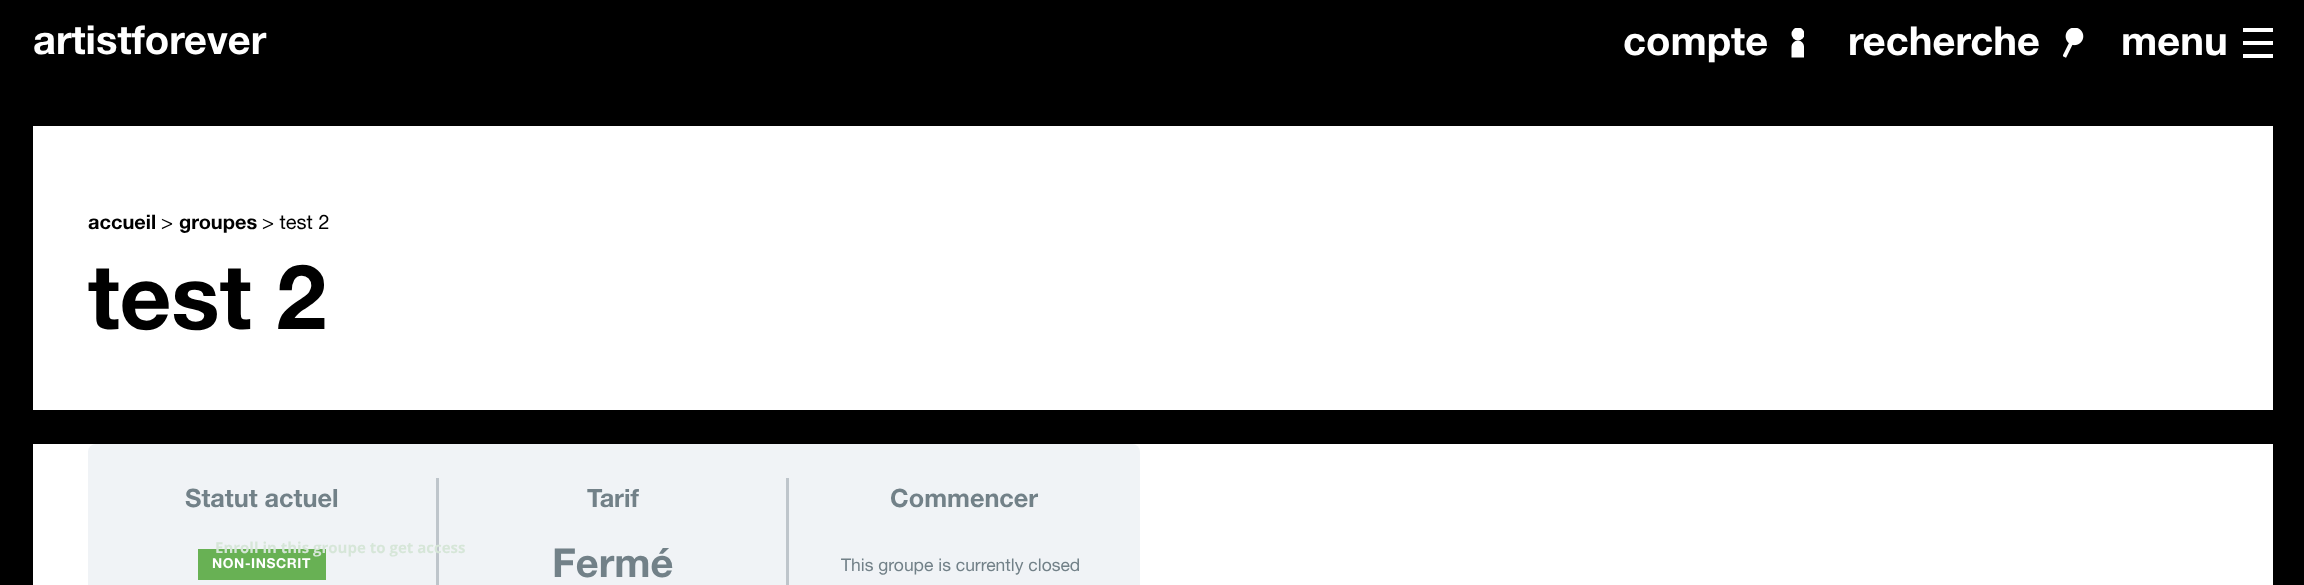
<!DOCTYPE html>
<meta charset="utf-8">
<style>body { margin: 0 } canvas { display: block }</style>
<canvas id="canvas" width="2304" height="585"></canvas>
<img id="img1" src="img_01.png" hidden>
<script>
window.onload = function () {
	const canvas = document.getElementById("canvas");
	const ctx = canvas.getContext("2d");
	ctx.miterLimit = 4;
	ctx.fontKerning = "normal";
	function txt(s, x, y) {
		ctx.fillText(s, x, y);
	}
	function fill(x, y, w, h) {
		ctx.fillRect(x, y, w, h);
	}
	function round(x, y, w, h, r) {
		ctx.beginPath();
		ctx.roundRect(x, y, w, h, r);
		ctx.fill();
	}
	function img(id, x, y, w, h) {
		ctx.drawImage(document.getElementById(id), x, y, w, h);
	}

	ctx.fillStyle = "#000000";
	fill(0, 0, 2304, 585);
	ctx.fillStyle = "#FFFFFF";
	ctx.beginPath();
	ctx.moveTo(1791.5, 57.5);
	ctx.lineTo(1791.5, 47);
	ctx.bezierCurveTo(1791.5, 43.5, 1794.5, 40.5, 1798, 40.5);
	ctx.bezierCurveTo(1801.5, 40.5, 1804, 43.5, 1804, 47);
	ctx.lineTo(1804, 57.5);
	ctx.fill();
	ctx.save();
	ctx.beginPath();
	ctx.rect(1791, 28, 13, 30);
	ctx.clip();
	ctx.beginPath();
	ctx.arc(1798, 34, 6.5, 0, Math.PI * 2);
	ctx.fill();
	ctx.restore();
	img("img1", 2063, 28, 21, 30);
	fill(2243, 28, 30, 4);
	fill(2243, 41, 30, 4);
	fill(2243, 54, 30, 4);
	fill(33, 126, 2240, 284);
	fill(33, 444, 2240, 141);
	ctx.fillStyle = "#F0F3F6";
	round(88, 444, 1052, 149, 8);
	ctx.fillStyle = "#BEC5CB";
	fill(436, 478, 3, 107);
	ctx.fillStyle = "#68B154";
	fill(198, 549, 128, 31);
	ctx.fillStyle = "#BEC5CB";
	fill(786, 478, 3, 107);
	ctx.font = "40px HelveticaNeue";
	ctx.fillStyle = "#FFFFFF";
	txt("artistforever", 33, 54);
	txt("compte", 1623, 55);
	txt("recherche", 1848, 55);
	txt("menu", 2121, 55);
	ctx.font = "20px HelveticaNeue";
	ctx.fillStyle = "#000000";
	txt("accueil", 88, 229);
	ctx.font = "20px 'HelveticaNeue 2'";
	txt(">", 161, 229);
	ctx.font = "20px HelveticaNeue";
	txt("groupes", 179, 229);
	ctx.font = "20px 'HelveticaNeue 2'";
	txt("> test 2", 262, 229);
	ctx.font = "90px HelveticaNeue";
	txt("test 2", 88, 329);
	ctx.font = "25.25px HelveticaNeue";
	ctx.fillStyle = "#728188";
	txt("Statut actuel", 185, 507);
	ctx.letterSpacing = "0.6px";
	ctx.font = "13.75px HelveticaNeue";
	ctx.fillStyle = "#FFFFFF";
	txt("NON-INSCRIT", 212, 568);
	ctx.letterSpacing = "0px";
	ctx.font = "25.25px HelveticaNeue";
	ctx.fillStyle = "#728188";
	txt("Tarif", 587, 507);
	ctx.font = "40px HelveticaNeue";
	txt("Fermé", 552, 577);
	ctx.font = "25.25px HelveticaNeue";
	txt("Commencer", 890, 507);
	ctx.font = "17.5px 'HelveticaNeue 2'";
	txt("This groupe is currently closed", 841, 571);
	ctx.font = "bold 15px Open Sans";
	ctx.fillStyle = "#D6E6D8";
	txt("Enroll in this groupe to get access", 215, 553);
};
</script>
